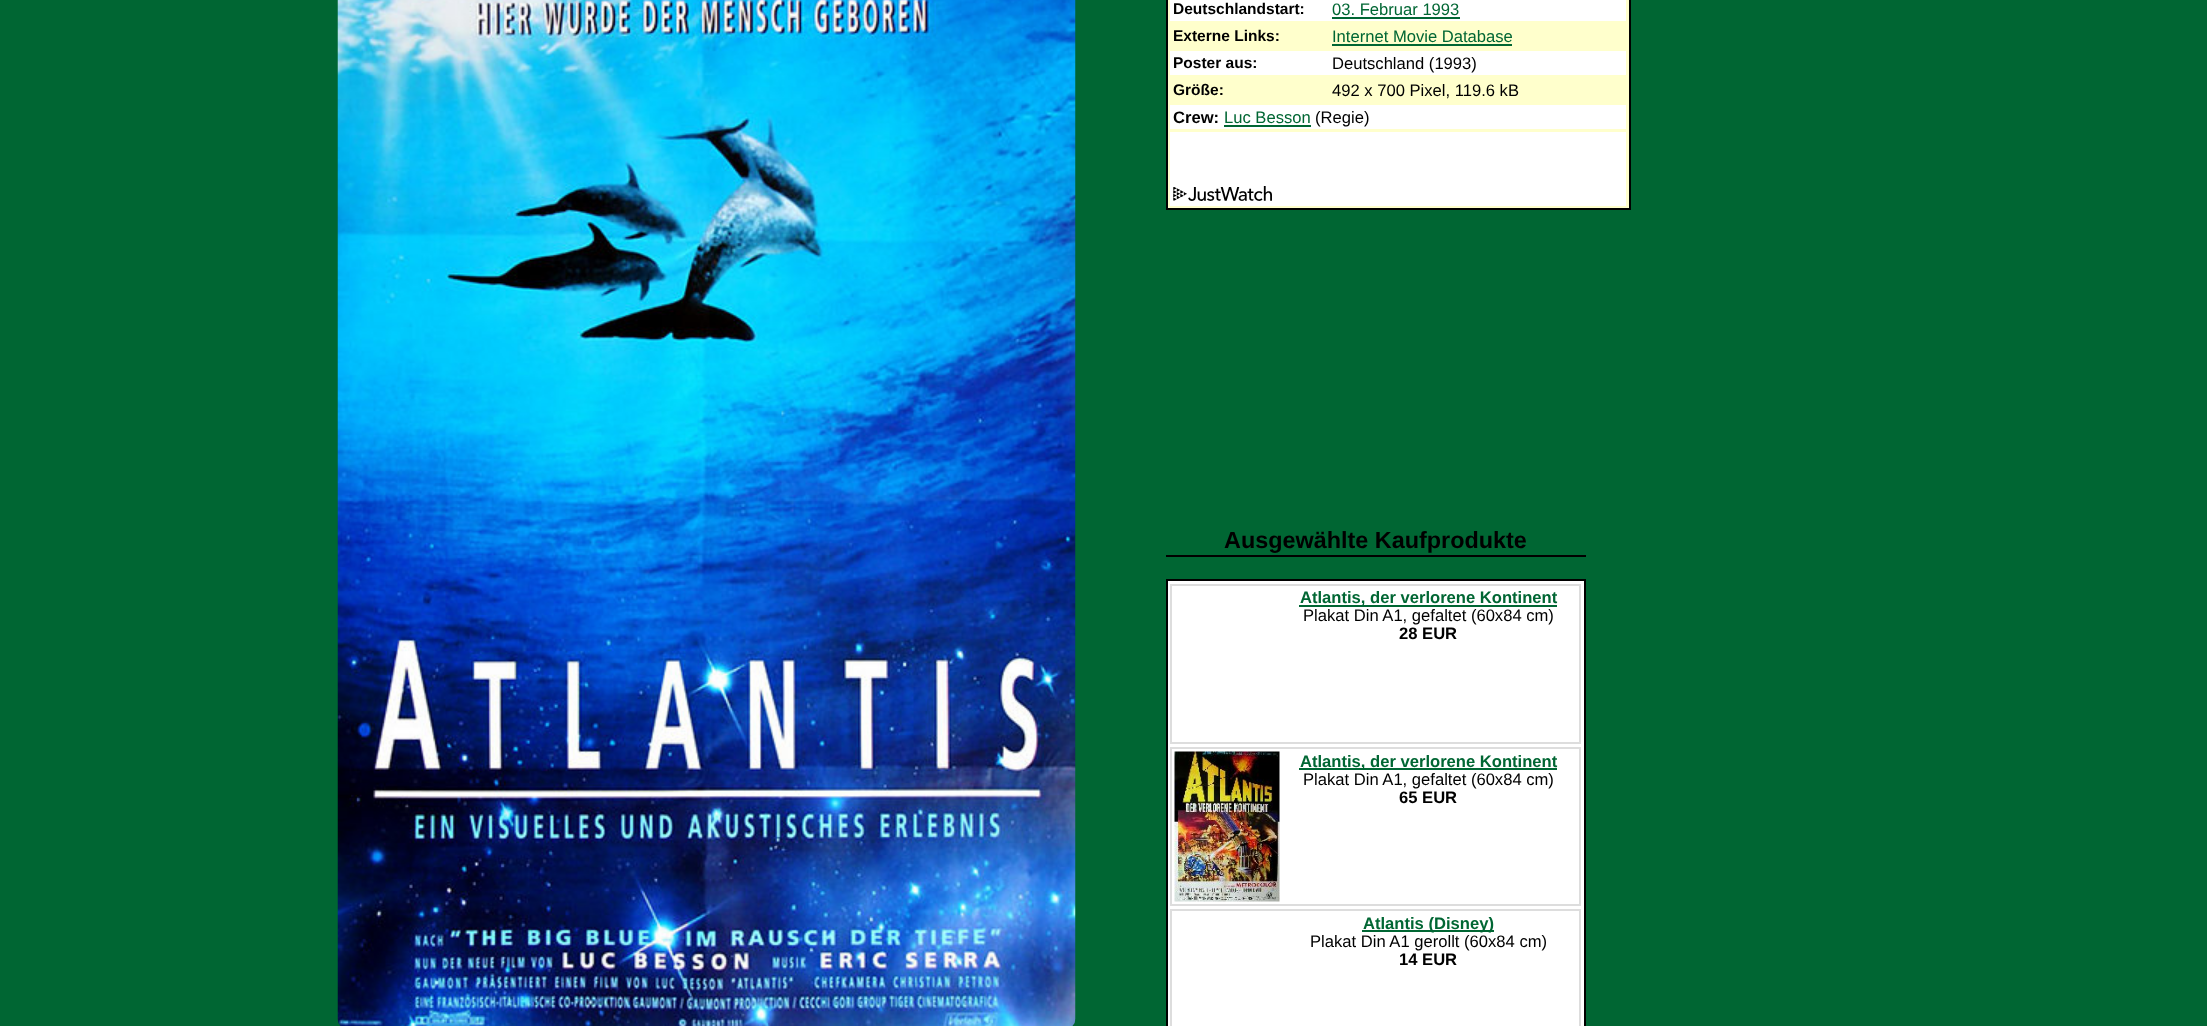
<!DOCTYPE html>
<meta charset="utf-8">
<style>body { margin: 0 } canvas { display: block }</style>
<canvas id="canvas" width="2207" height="1026"></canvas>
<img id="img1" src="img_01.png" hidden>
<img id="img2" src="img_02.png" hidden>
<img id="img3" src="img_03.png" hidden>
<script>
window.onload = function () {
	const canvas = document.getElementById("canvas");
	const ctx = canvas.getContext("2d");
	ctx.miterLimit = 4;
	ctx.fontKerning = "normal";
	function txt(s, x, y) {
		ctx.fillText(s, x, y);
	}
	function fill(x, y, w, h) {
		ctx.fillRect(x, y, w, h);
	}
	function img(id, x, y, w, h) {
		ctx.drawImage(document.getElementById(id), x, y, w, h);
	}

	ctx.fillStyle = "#006633";
	fill(0, 0, 2207, 1026);
	img("img1", 337, 0, 739, 1026);
	ctx.fillStyle = "#FFFFCC";
	ctx.beginPath();
	ctx.rect(1167, -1, 463, 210);
	ctx.fill();
	ctx.strokeStyle = "#000000";
	ctx.lineWidth = 2;
	ctx.stroke();
	ctx.fillStyle = "#FFFFFF";
	fill(1170, 0, 456, 21);
	ctx.fillStyle = "#006633";
	fill(1332, 17, 128, 2);
	fill(1332, 44, 180, 2);
	ctx.fillStyle = "#FFFFFF";
	fill(1170, 51, 456, 24);
	fill(1170, 105, 456, 24);
	ctx.fillStyle = "#006633";
	fill(1224, 125, 87, 2);
	ctx.fillStyle = "#FFFFFF";
	fill(1170, 132, 456, 74);
	img("img2", 1173, 186, 99, 15);
	ctx.fillStyle = "#000000";
	fill(1166, 555, 420, 2);
	ctx.fillStyle = "#FFFFFF";
	ctx.beginPath();
	ctx.rect(1167, 580, 418, 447);
	ctx.fill();
	ctx.stroke();
	ctx.strokeStyle = "#DDDDDD";
	ctx.strokeRect(1171, 585, 409, 158);
	ctx.fillStyle = "#006633";
	fill(1299, 605, 258, 2);
	ctx.strokeRect(1171, 748, 409, 157);
	img("img3", 1174, 751, 106, 151);
	fill(1299, 768, 258, 2);
	ctx.strokeRect(1171, 910, 409, 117);
	fill(1362, 930, 132, 2);
	ctx.font = "bold 15.5px Liberation Sans";
	ctx.fillStyle = "#000000";
	txt("Deutschlandstart:", 1173, 14);
	ctx.font = "16.6px Liberation Sans";
	ctx.fillStyle = "#006633";
	txt("03. Februar 1993", 1332, 15);
	ctx.font = "bold 15.5px Liberation Sans";
	ctx.fillStyle = "#000000";
	txt("Externe Links:", 1173, 41);
	ctx.font = "16.6px Liberation Sans";
	ctx.fillStyle = "#006633";
	txt("Internet Movie Database", 1332, 42);
	ctx.font = "bold 15.5px Liberation Sans";
	ctx.fillStyle = "#000000";
	txt("Poster aus:", 1173, 68);
	ctx.font = "16.6px Liberation Sans";
	txt("Deutschland (1993)", 1332, 69);
	ctx.font = "bold 15.5px Liberation Sans";
	txt("Größe:", 1173, 95);
	ctx.font = "16.6px Liberation Sans";
	txt("492 x 700 Pixel, 119.6 kB", 1332, 96);
	ctx.font = "bold 16.6px Liberation Sans";
	txt("Crew:", 1173, 123);
	ctx.font = "16.6px Liberation Sans";
	ctx.fillStyle = "#006633";
	txt("Luc Besson", 1224, 123);
	ctx.fillStyle = "#000000";
	txt("(Regie)", 1315, 123);
	ctx.font = "bold 23.4px Liberation Sans";
	txt("Ausgewählte Kaufprodukte", 1224, 548);
	ctx.font = "bold 16.6px Liberation Sans";
	ctx.fillStyle = "#006633";
	txt("Atlantis, der verlorene Kontinent", 1300, 603);
	ctx.font = "16.6px Liberation Sans";
	ctx.fillStyle = "#000000";
	txt("Plakat Din A1, gefaltet (60x84 cm)", 1303, 621);
	ctx.font = "bold 16.6px Liberation Sans";
	txt("28 EUR", 1399, 639);
	ctx.fillStyle = "#006633";
	txt("Atlantis, der verlorene Kontinent", 1300, 767);
	ctx.font = "16.6px Liberation Sans";
	ctx.fillStyle = "#000000";
	txt("Plakat Din A1, gefaltet (60x84 cm)", 1303, 785);
	ctx.font = "bold 16.6px Liberation Sans";
	txt("65 EUR", 1399, 803);
	ctx.fillStyle = "#006633";
	txt("Atlantis (Disney)", 1363, 929);
	ctx.font = "16.6px Liberation Sans";
	ctx.fillStyle = "#000000";
	txt("Plakat Din A1 gerollt (60x84 cm)", 1310, 947);
	ctx.font = "bold 16.6px Liberation Sans";
	txt("14 EUR", 1399, 965);
};
</script>
